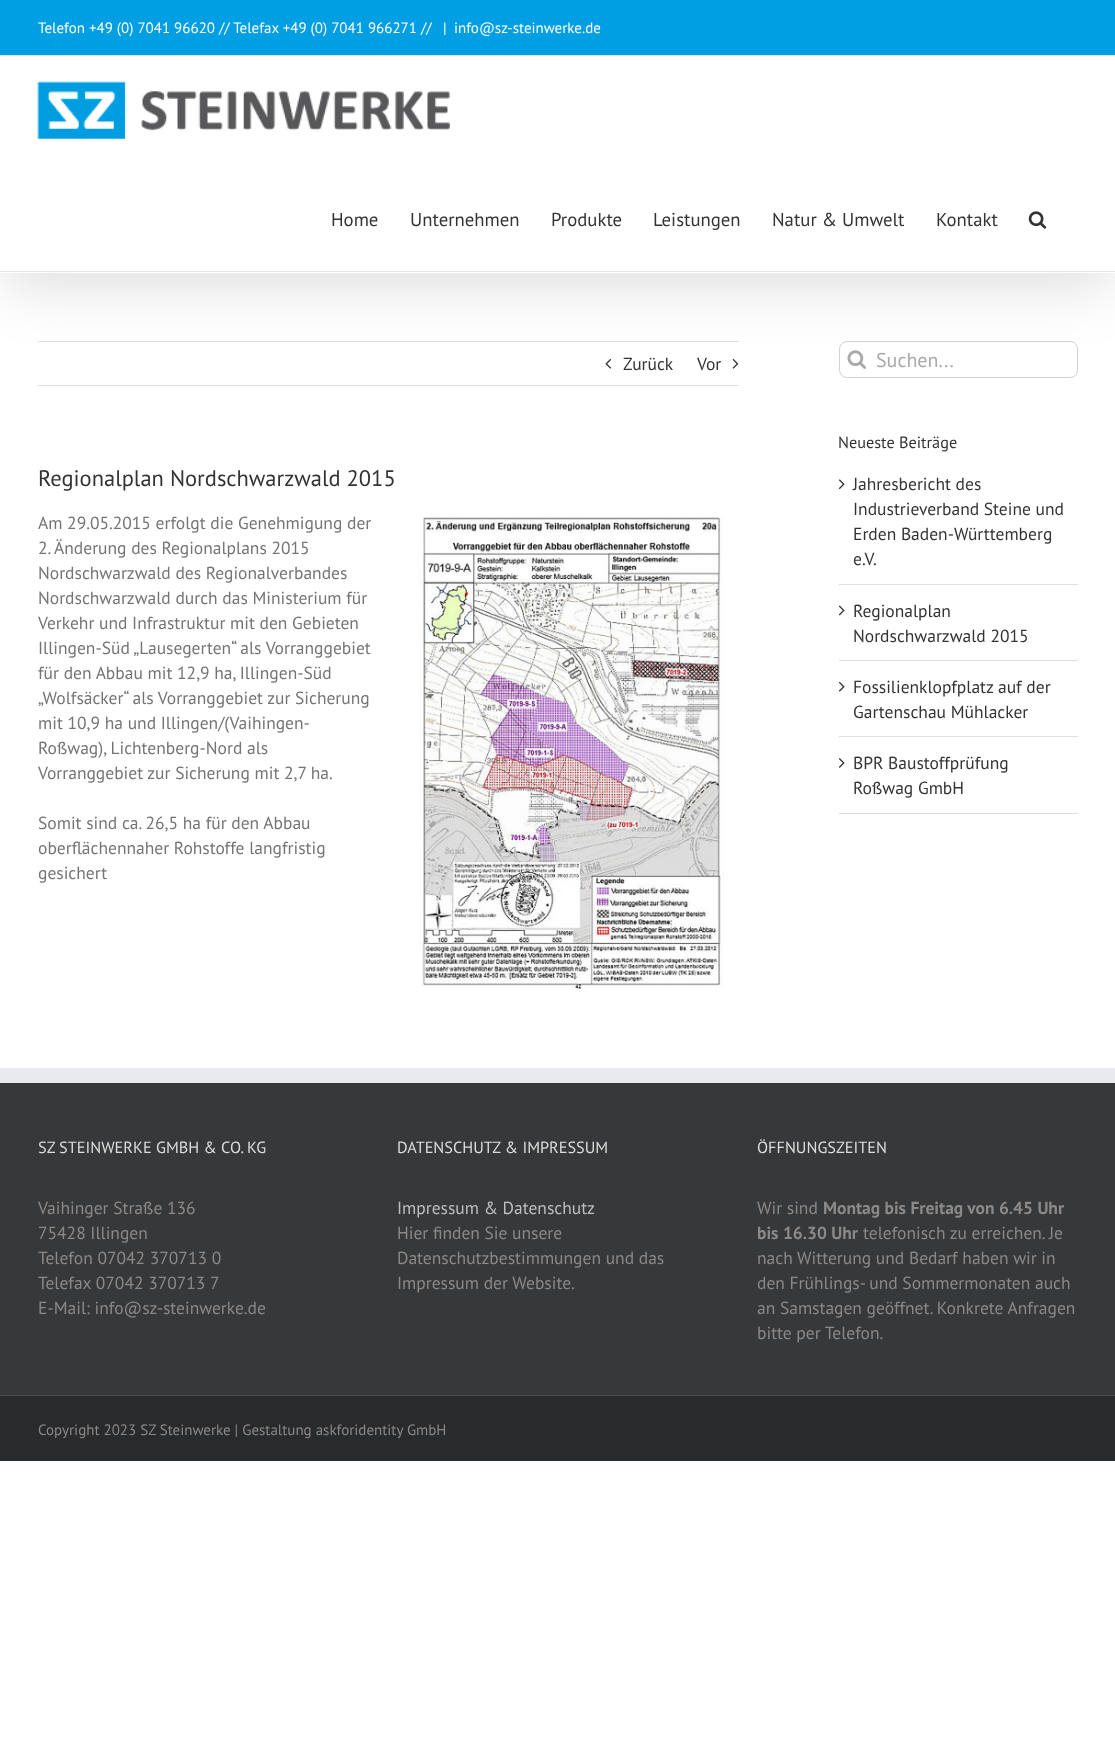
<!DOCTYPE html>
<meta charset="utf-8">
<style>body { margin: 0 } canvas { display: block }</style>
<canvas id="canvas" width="1115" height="1757"></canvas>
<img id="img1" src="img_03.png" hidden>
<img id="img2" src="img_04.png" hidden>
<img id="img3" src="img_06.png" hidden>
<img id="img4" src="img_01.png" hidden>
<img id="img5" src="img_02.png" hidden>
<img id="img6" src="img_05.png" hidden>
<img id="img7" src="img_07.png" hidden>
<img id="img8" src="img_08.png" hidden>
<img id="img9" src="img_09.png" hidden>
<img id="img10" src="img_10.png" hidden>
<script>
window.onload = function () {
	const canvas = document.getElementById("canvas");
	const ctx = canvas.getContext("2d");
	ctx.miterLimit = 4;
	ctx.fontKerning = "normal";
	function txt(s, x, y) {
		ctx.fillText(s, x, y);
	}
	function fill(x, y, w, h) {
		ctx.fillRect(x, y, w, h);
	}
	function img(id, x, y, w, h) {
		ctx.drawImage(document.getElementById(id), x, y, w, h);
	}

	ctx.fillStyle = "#FFFFFF";
	fill(0, 0, 1115, 1757);
	ctx.fillStyle = "#E0DEDE";
	fill(38, 341, 701, 1);
	img("img1", 605, 359, 7, 10);
	img("img2", 732, 359, 7, 10);
	ctx.beginPath();
	ctx.roundRect(839.5, 341.5, 238, 36, 7.5);
	ctx.strokeStyle = "#D2D2D2";
	ctx.stroke();
	img("img3", 847, 350, 19, 19);
	ctx.fillStyle = "rgba(0, 0, 0, 0.14)";
	ctx.filter = "blur(31px)";
	ctx.beginPath();
	ctx.rect(3, 15, 1110, 268);
	ctx.fill();
	ctx.filter = "none";
	ctx.fillStyle = "#009EE2";
	fill(0, 0, 1115, 55);
	ctx.fillStyle = "#E5E5E5";
	fill(0, 55, 1115, 1);
	ctx.fillStyle = "#FFFFFF";
	fill(0, 56, 1115, 217);
	ctx.fillStyle = "#E5E5E5";
	fill(0, 271, 1115, 1);
	img("img4", 37, 81, 413, 58);
	img("img5", 1028, 211, 19, 18);
	ctx.fillStyle = "#E0DEDE";
	fill(38, 385, 701, 1);
	img("img6", 419, 517, 305, 475);
	fill(839, 584, 239, 1);
	img("img7", 838, 479, 7, 10);
	fill(839, 660, 239, 1);
	img("img8", 838, 605, 7, 11);
	fill(839, 736, 239, 1);
	img("img9", 838, 681, 7, 11);
	fill(839, 813, 239, 1);
	img("img10", 838, 758, 7, 10);
	ctx.fillStyle = "#363839";
	fill(0, 1083, 1115, 312);
	ctx.fillStyle = "#E9EAEE";
	fill(0, 1068, 1115, 15);
	ctx.fillStyle = "#282A2B";
	fill(0, 1396, 1115, 65);
	ctx.fillStyle = "#4B4C4D";
	fill(0, 1395, 1115, 1);
	ctx.font = "15px PT Sans";
	ctx.fillStyle = "#FFFFFF";
	txt("Telefon +49 (0) 7041 96620 // Telefax +49 (0) 7041 966271 //", 38, 33);
	txt("|", 443, 33);
	txt("info@sz-steinwerke.de", 454, 33);
	ctx.font = "18.75px PT Sans";
	ctx.fillStyle = "#333333";
	txt("Home", 331, 226);
	txt("Unternehmen", 410, 226);
	txt("Produkte", 551, 226);
	txt("Leistungen", 653, 226);
	txt("Natur & Umwelt", 772, 226);
	txt("Kontakt", 936, 226);
	ctx.font = "17.5px PT Sans";
	txt("Zurück", 623, 370);
	txt("Vor", 697, 370);
	ctx.font = "22.5px PT Sans";
	txt("Regionalplan Nordschwarzwald 2015", 38, 486);
	ctx.font = "17.5px PT Sans";
	ctx.fillStyle = "#747474";
	txt("Am 29.05.2015 erfolgt die Genehmigung der", 38, 529);
	txt("2. Änderung des Regionalplans 2015", 38, 554);
	txt("Nordschwarzwald des Regionalverbandes", 38, 579);
	txt("Nordschwarzwald durch das Ministerium für", 38, 604);
	txt("Verkehr und Infrastruktur mit den Gebieten", 38, 629);
	txt("Illingen-Süd „Lausegerten“ als Vorranggebiet", 38, 654);
	txt("für den Abbau mit 12,9 ha, Illingen-Süd", 38, 679);
	txt("„Wolfsäcker“ als Vorranggebiet zur Sicherung", 38, 704);
	txt("mit 10,9 ha und Illingen/(Vaihingen-", 38, 729);
	txt("Roßwag), Lichtenberg-Nord als", 38, 754);
	txt("Vorranggebiet zur Sicherung mit 2,7 ha.", 38, 779);
	txt("Somit sind ca. 26,5 ha für den Abbau", 38, 829);
	txt("oberflächennaher Rohstoffe langfristig", 38, 854);
	txt("gesichert", 38, 879);
	ctx.font = "20px PT Sans";
	ctx.fillStyle = "#AAA9A9";
	txt("Suchen...", 876, 367);
	ctx.font = "16.25px PT Sans";
	ctx.fillStyle = "#333333";
	txt("Neueste Beiträge", 838, 448);
	ctx.font = "17.5px PT Sans";
	txt("Jahresbericht des", 853, 490);
	txt("Industrieverband Steine und", 853, 515);
	txt("Erden Baden-Württemberg", 853, 540);
	txt("e.V.", 853, 565);
	txt("Regionalplan", 853, 617);
	txt("Nordschwarzwald 2015", 853, 642);
	txt("Fossilienklopfplatz auf der", 853, 693);
	txt("Gartenschau Mühlacker", 853, 718);
	txt("BPR Baustoffprüfung", 853, 769);
	txt("Roßwag GmbH", 853, 794);
	ctx.font = "16.25px PT Sans";
	ctx.fillStyle = "#DDDDDD";
	txt("SZ STEINWERKE GMBH & CO. KG", 38, 1153);
	ctx.font = "17.5px PT Sans";
	ctx.fillStyle = "#8C8989";
	txt("Vaihinger Straße 136", 38, 1214);
	txt("75428 Illingen", 38, 1239);
	txt("Telefon 07042 370713 0", 38, 1264);
	txt("Telefax 07042 370713 7", 38, 1289);
	txt("E-Mail: info@sz-steinwerke.de", 38, 1314);
	ctx.font = "16.25px PT Sans";
	ctx.fillStyle = "#DDDDDD";
	txt("DATENSCHUTZ & IMPRESSUM", 397, 1153);
	ctx.font = "17.5px PT Sans";
	ctx.fillStyle = "#BFBFBF";
	txt("Impressum & Datenschutz", 397, 1214);
	ctx.fillStyle = "#8C8989";
	txt("Hier finden Sie unsere", 397, 1239);
	txt("Datenschutzbestimmungen und das", 397, 1264);
	txt("Impressum der Website.", 397, 1289);
	ctx.font = "16.25px PT Sans";
	ctx.fillStyle = "#DDDDDD";
	txt("ÖFFNUNGSZEITEN", 757, 1153);
	ctx.font = "17.5px PT Sans";
	ctx.fillStyle = "#8C8989";
	txt("Wir sind", 757, 1214);
	ctx.font = "bold 17.5px PT Sans";
	txt("Montag bis Freitag von 6.45 Uhr", 823, 1214);
	txt("bis 16.30 Uhr", 757, 1239);
	ctx.font = "17.5px PT Sans";
	txt("telefonisch zu erreichen. Je", 863, 1239);
	txt("nach Witterung und Bedarf haben wir in", 757, 1264);
	txt("den Frühlings- und Sommermonaten auch", 757, 1289);
	txt("an Samstagen geöffnet. Konkrete Anfragen", 757, 1314);
	txt("bitte per Telefon.", 757, 1339);
	ctx.font = "15px PT Sans";
	txt("Copyright 2023 SZ Steinwerke | Gestaltung askforidentity GmbH", 38, 1435);
};
</script>
